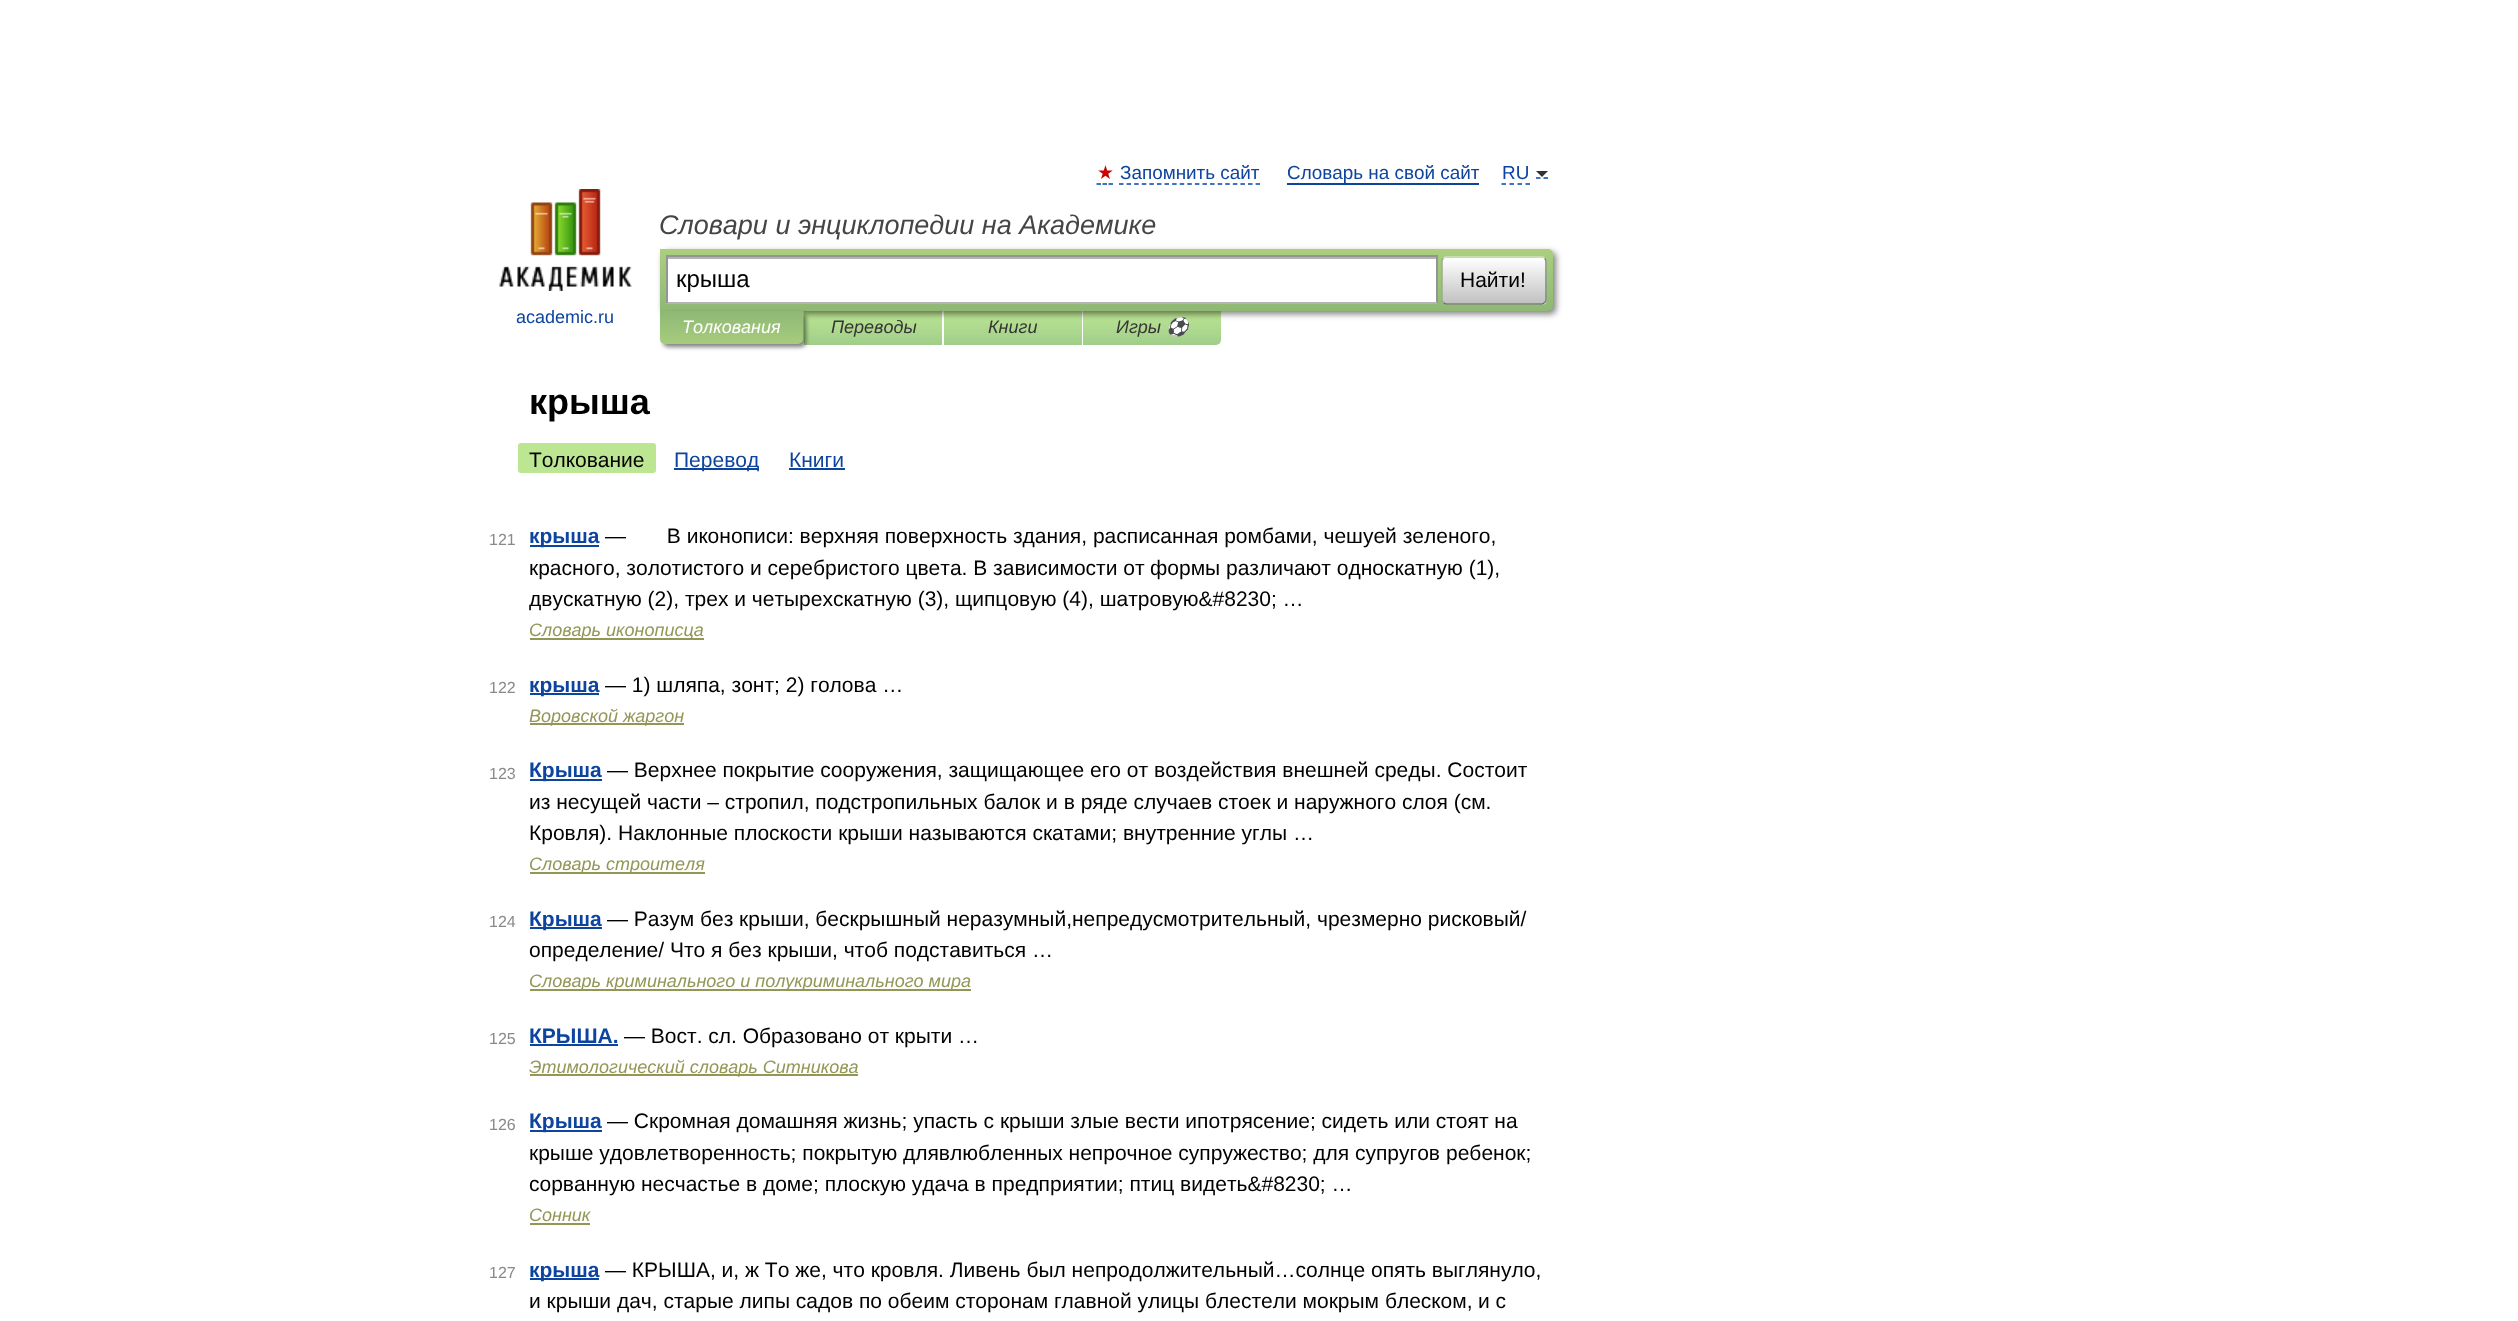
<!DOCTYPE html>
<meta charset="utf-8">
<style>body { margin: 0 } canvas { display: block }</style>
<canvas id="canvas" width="2518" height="1321"></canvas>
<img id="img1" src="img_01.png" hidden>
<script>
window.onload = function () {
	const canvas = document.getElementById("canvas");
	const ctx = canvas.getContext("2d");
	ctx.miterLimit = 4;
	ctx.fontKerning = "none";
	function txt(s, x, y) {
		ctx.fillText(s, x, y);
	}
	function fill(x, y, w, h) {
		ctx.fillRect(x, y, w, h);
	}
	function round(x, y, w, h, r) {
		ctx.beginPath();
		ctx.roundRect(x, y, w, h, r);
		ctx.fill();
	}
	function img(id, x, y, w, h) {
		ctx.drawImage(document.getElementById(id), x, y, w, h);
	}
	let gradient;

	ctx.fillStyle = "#FFFFFF";
	fill(0, 0, 2518, 1321);
	ctx.beginPath();
	ctx.moveTo(1096.5, 184);
	ctx.lineTo(1101, 184);
	ctx.moveTo(1102.5, 184);
	ctx.lineTo(1107, 184);
	ctx.moveTo(1108.5, 184);
	ctx.lineTo(1113, 184);
	ctx.strokeStyle = "#0044AA";
	ctx.lineWidth = 1.5;
	ctx.stroke();
	ctx.beginPath();
	ctx.moveTo(1119, 184);
	ctx.lineTo(1260, 184);
	ctx.setLineDash([4.5, 3.09]);
	ctx.stroke();
	ctx.fillStyle = "#0D44A0";
	fill(1287, 183, 192, 2);
	ctx.beginPath();
	ctx.moveTo(1501.5, 184);
	ctx.lineTo(1530, 184);
	ctx.setLineDash([4.5, 3.5]);
	ctx.stroke();
	ctx.beginPath();
	ctx.moveTo(1536, 178);
	ctx.lineTo(1540.5, 178);
	ctx.moveTo(1543.5, 178);
	ctx.lineTo(1548, 178);
	ctx.setLineDash([]);
	ctx.stroke();
	ctx.fillStyle = "#333333";
	ctx.beginPath();
	ctx.moveTo(1536, 171);
	ctx.lineTo(1548, 171);
	ctx.lineTo(1542, 177);
	ctx.closePath();
	ctx.fill();
	gradient = ctx.createLinearGradient(873, 311, 873, 345);
	gradient.addColorStop(0, "#BDE693");
	gradient.addColorStop(1, "#A0CE8A");
	ctx.fillStyle = gradient;
	fill(804, 311, 138, 34);
	gradient = ctx.createLinearGradient(1013, 311, 1013, 345);
	gradient.addColorStop(0, "#BDE693");
	gradient.addColorStop(1, "#A0CE8A");
	ctx.fillStyle = gradient;
	fill(944, 311, 138, 34);
	gradient = ctx.createLinearGradient(1152, 311, 1152, 345);
	gradient.addColorStop(0, "#BDE693");
	gradient.addColorStop(1, "#A0CE8A");
	ctx.fillStyle = gradient;
	ctx.beginPath();
	ctx.roundRect(1083, 311, 138, 34, [0, 0, 5, 0]);
	ctx.fill();
	ctx.fillStyle = "rgba(0, 0, 0, 0.5)";
	ctx.filter = "blur(3px)";
	ctx.beginPath();
	ctx.roundRect(663, 252, 893, 62, 5);
	ctx.fill();
	ctx.filter = "none";
	gradient = ctx.createLinearGradient(1106, 249, 1106, 311);
	gradient.addColorStop(0, "#ABCF7E");
	gradient.addColorStop(1, "#8EB874");
	ctx.fillStyle = gradient;
	ctx.beginPath();
	ctx.roundRect(660, 249, 893, 62, [0, 5, 5, 0]);
	ctx.fill();
	ctx.fillStyle = "#FFFFFF";
	fill(668, 259, 768, 43);
	ctx.fillStyle = "#B3B3B3";
	fill(668, 257, 768, 2);
	ctx.fillStyle = "#949494";
	fill(666, 255, 771, 2);
	fill(1436, 255, 2, 48);
	ctx.fillStyle = "#B4B4B4";
	fill(666, 302, 771, 2);
	ctx.fillStyle = "#949494";
	fill(666, 255, 2, 48);
	ctx.save();
	ctx.beginPath();
	ctx.roundRect(1442, 257, 105, 48, 5);
	ctx.clip();
	gradient = ctx.createLinearGradient(1494, 258, 1494, 303);
	gradient.addColorStop(0, "#FFFFFF");
	gradient.addColorStop(1, "#C1C1C1");
	ctx.fillStyle = gradient;
	fill(1442, 258, 105, 45);
	gradient = ctx.createLinearGradient(1494, 303, 1494, 348);
	gradient.addColorStop(0, "#FFFFFF");
	gradient.addColorStop(1, "#C1C1C1");
	ctx.fillStyle = gradient;
	fill(1442, 303, 105, 2);
	ctx.restore();
	ctx.beginPath();
	ctx.moveTo(1443.5, 258.5);
	ctx.bezierCurveTo(1444, 257.5, 1445, 257, 1446, 257);
	ctx.lineTo(1542, 257);
	ctx.bezierCurveTo(1543, 257, 1544, 257.5, 1544.5, 258.5);
	ctx.strokeStyle = "#D1E4BC";
	ctx.stroke();
	ctx.beginPath();
	ctx.moveTo(1544.5, 258.5);
	ctx.bezierCurveTo(1545.5, 259, 1546, 260, 1546, 261);
	ctx.lineTo(1546, 300);
	ctx.bezierCurveTo(1546, 301, 1545.5, 302, 1544.5, 302.5);
	ctx.strokeStyle = "#7A8E69";
	ctx.stroke();
	ctx.beginPath();
	ctx.moveTo(1544.5, 302.5);
	ctx.bezierCurveTo(1544, 303.5, 1543, 304, 1542, 304);
	ctx.lineTo(1446, 304);
	ctx.bezierCurveTo(1445, 304, 1444, 303.5, 1443.5, 302.5);
	ctx.strokeStyle = "#5D7250";
	ctx.stroke();
	ctx.beginPath();
	ctx.moveTo(1443.5, 302.5);
	ctx.bezierCurveTo(1442.5, 302, 1442, 301, 1442, 300);
	ctx.lineTo(1442, 261);
	ctx.bezierCurveTo(1442, 260, 1442.5, 259, 1443.5, 258.5);
	ctx.strokeStyle = "#9AAE89";
	ctx.stroke();
	img("img1", 499, 189, 133, 102);
	ctx.fillStyle = "rgba(0, 0, 0, 0.5)";
	ctx.filter = "blur(2px)";
	ctx.beginPath();
	ctx.roundRect(663, 314, 143, 33, 5);
	ctx.fill();
	ctx.filter = "none";
	gradient = ctx.createLinearGradient(731, 311, 731, 344);
	gradient.addColorStop(0, "#8FB875");
	gradient.addColorStop(1, "#A7CC7D");
	ctx.fillStyle = gradient;
	ctx.beginPath();
	ctx.roundRect(660, 311, 143, 33, [0, 0, 5, 5]);
	ctx.fill();
	ctx.fillStyle = "#BDE693";
	round(518, 443, 138, 30, 3);
	ctx.fillStyle = "#0D44A0";
	fill(674, 468, 85, 2);
	fill(789, 468, 56, 2);
	fill(530, 545, 69, 2);
	ctx.fillStyle = "#939756";
	fill(530, 638, 174, 2);
	ctx.fillStyle = "#0D44A0";
	fill(530, 693, 69, 2);
	ctx.fillStyle = "#939756";
	fill(530, 723, 154, 2);
	ctx.fillStyle = "#0D44A0";
	fill(530, 779, 72, 2);
	ctx.fillStyle = "#939756";
	fill(530, 872, 175, 2);
	ctx.fillStyle = "#0D44A0";
	fill(530, 927, 72, 2);
	ctx.fillStyle = "#939756";
	fill(530, 989, 441, 2);
	ctx.fillStyle = "#0D44A0";
	fill(530, 1044, 88, 2);
	ctx.fillStyle = "#939756";
	fill(530, 1074, 328, 2);
	ctx.fillStyle = "#0D44A0";
	fill(530, 1130, 72, 2);
	ctx.fillStyle = "#939756";
	fill(530, 1223, 60, 2);
	ctx.fillStyle = "#0D44A0";
	fill(530, 1278, 69, 2);
	ctx.font = "18.9px DejaVu Sans";
	ctx.fillStyle = "#CC0000";
	txt("★", 1097, 179);
	ctx.font = "18.9px Liberation Sans";
	ctx.fillStyle = "#0D44A0";
	txt("Запомнить сайт", 1120, 179);
	txt("Словарь на свой сайт", 1287, 179);
	txt("RU", 1502, 179);
	ctx.font = "italic 27px Liberation Sans";
	ctx.fillStyle = "#454545";
	txt("Словари и энциклопедии на Академике", 659, 234);
	ctx.font = "24px Liberation Sans";
	ctx.fillStyle = "#000000";
	txt("крыша", 676, 287);
	ctx.font = "21px Liberation Sans";
	txt("Найти!", 1460, 287);
	ctx.font = "18px Liberation Sans";
	ctx.fillStyle = "#0D44A0";
	txt("academic.ru", 516, 323);
	ctx.font = "italic 18px Liberation Sans";
	ctx.fillStyle = "#FFFFFF";
	txt("Толкования", 682, 333);
	ctx.fillStyle = "#353535";
	txt("Переводы", 831, 333);
	txt("Книги", 988, 333);
	txt("Игры", 1116, 333);
	ctx.font = "italic 18px Noto Color Emoji";
	txt("⚽", 1166, 333);
	ctx.font = "bold 36px Liberation Sans";
	ctx.fillStyle = "#000000";
	txt("крыша", 529, 414);
	ctx.font = "21px Liberation Sans";
	txt("Толкование", 529, 467);
	ctx.fillStyle = "#0D44A0";
	txt("Перевод", 674, 467);
	txt("Книги", 789, 467);
	ctx.font = "16px Liberation Sans";
	ctx.fillStyle = "#898989";
	txt("121", 489, 545);
	ctx.font = "bold 21px Liberation Sans";
	ctx.fillStyle = "#0D44A0";
	txt("крыша", 529, 543);
	ctx.font = "21px Liberation Sans";
	ctx.fillStyle = "#000000";
	txt("—       В иконописи: верхняя поверхность здания, расписанная ромбами, чешуей зеленого,", 605, 543);
	txt("красного, золотистого и серебристого цвета. В зависимости от", 529, 575);
	txt("формы различают односкатную (1),", 1150, 575);
	txt("двускатную (2), трех и четырехскатную (3), щипцовую (4), шатровую&#8230; …", 529, 606);
	ctx.font = "italic 18px Liberation Sans";
	ctx.fillStyle = "#939756";
	txt("Словарь иконописца", 529, 636);
	ctx.font = "16px Liberation Sans";
	ctx.fillStyle = "#898989";
	txt("122", 489, 693);
	ctx.font = "bold 21px Liberation Sans";
	ctx.fillStyle = "#0D44A0";
	txt("крыша", 529, 692);
	ctx.font = "21px Liberation Sans";
	ctx.fillStyle = "#000000";
	txt("— 1) шляпа, зонт; 2) голова …", 605, 692);
	ctx.font = "italic 18px Liberation Sans";
	ctx.fillStyle = "#939756";
	txt("Воровской жаргон", 529, 722);
	ctx.font = "16px Liberation Sans";
	ctx.fillStyle = "#898989";
	txt("123", 489, 779);
	ctx.font = "bold 21px Liberation Sans";
	ctx.fillStyle = "#0D44A0";
	txt("Крыша", 529, 777);
	ctx.font = "21px Liberation Sans";
	ctx.fillStyle = "#000000";
	txt("— Верхнее покрытие сооружения, защищающее его от воздействия внешней среды. Состоит", 607, 777);
	txt("из несущей части – стропил, подстропильных балок и в ряде случаев стоек и наружного слоя (см.", 529, 809);
	txt("Кровля). Наклонные плоскости крыши называются скатами; внутренние углы …", 529, 840);
	ctx.font = "italic 18px Liberation Sans";
	ctx.fillStyle = "#939756";
	txt("Словарь строителя", 529, 870);
	ctx.font = "16px Liberation Sans";
	ctx.fillStyle = "#898989";
	txt("124", 489, 927);
	ctx.font = "bold 21px Liberation Sans";
	ctx.fillStyle = "#0D44A0";
	txt("Крыша", 529, 926);
	ctx.font = "21px Liberation Sans";
	ctx.fillStyle = "#000000";
	txt("— Разум без крыши, беcкрышный неразумный,непредусмотрительный,", 607, 926);
	txt("чрезмерно рисковый/", 1317, 926);
	txt("определение/ Что я без крыши, чтоб подставиться …", 529, 957);
	ctx.font = "italic 18px Liberation Sans";
	ctx.fillStyle = "#939756";
	txt("Словарь криминального и полукриминального мира", 529, 987);
	ctx.font = "16px Liberation Sans";
	ctx.fillStyle = "#898989";
	txt("125", 489, 1044);
	ctx.font = "bold 21px Liberation Sans";
	ctx.fillStyle = "#0D44A0";
	txt("КРЫША.", 529, 1043);
	ctx.font = "21px Liberation Sans";
	ctx.fillStyle = "#000000";
	txt("— Вост. сл. Образовано от крыти …", 624, 1043);
	ctx.font = "italic 18px Liberation Sans";
	ctx.fillStyle = "#939756";
	txt("Этимологический словарь Ситникова", 529, 1073);
	ctx.font = "16px Liberation Sans";
	ctx.fillStyle = "#898989";
	txt("126", 489, 1130);
	ctx.font = "bold 21px Liberation Sans";
	ctx.fillStyle = "#0D44A0";
	txt("Крыша", 529, 1128);
	ctx.font = "21px Liberation Sans";
	ctx.fillStyle = "#000000";
	txt("— Скромная домашняя жизнь; упасть с крыши злые вести ипотрясение; сидеть или стоят на", 607, 1128);
	txt("крыше удовлетворенность; покрытую длявлюбленных непрочное супружество; для супругов", 529, 1160);
	txt("ребенок;", 1446, 1160);
	txt("сорванную несчастье в доме; плоскую удача в предприятии; птиц видеть&#8230; …", 529, 1191);
	ctx.font = "italic 18px Liberation Sans";
	ctx.fillStyle = "#939756";
	txt("Сонник", 529, 1221);
	ctx.font = "16px Liberation Sans";
	ctx.fillStyle = "#898989";
	txt("127", 489, 1278);
	ctx.font = "bold 21px Liberation Sans";
	ctx.fillStyle = "#0D44A0";
	txt("крыша", 529, 1277);
	ctx.font = "21px Liberation Sans";
	ctx.fillStyle = "#000000";
	txt("— КРЫША, и, ж То же, что кровля. Ливень был непродолжительный…солнце", 605, 1277);
	txt("опять выглянуло,", 1371, 1277);
	txt("и крыши дач, старые липы садов по обеим сторонам главной улицы блестели мокрым блеском,", 529, 1308);
	txt("и с", 1478, 1308);
};
</script>
